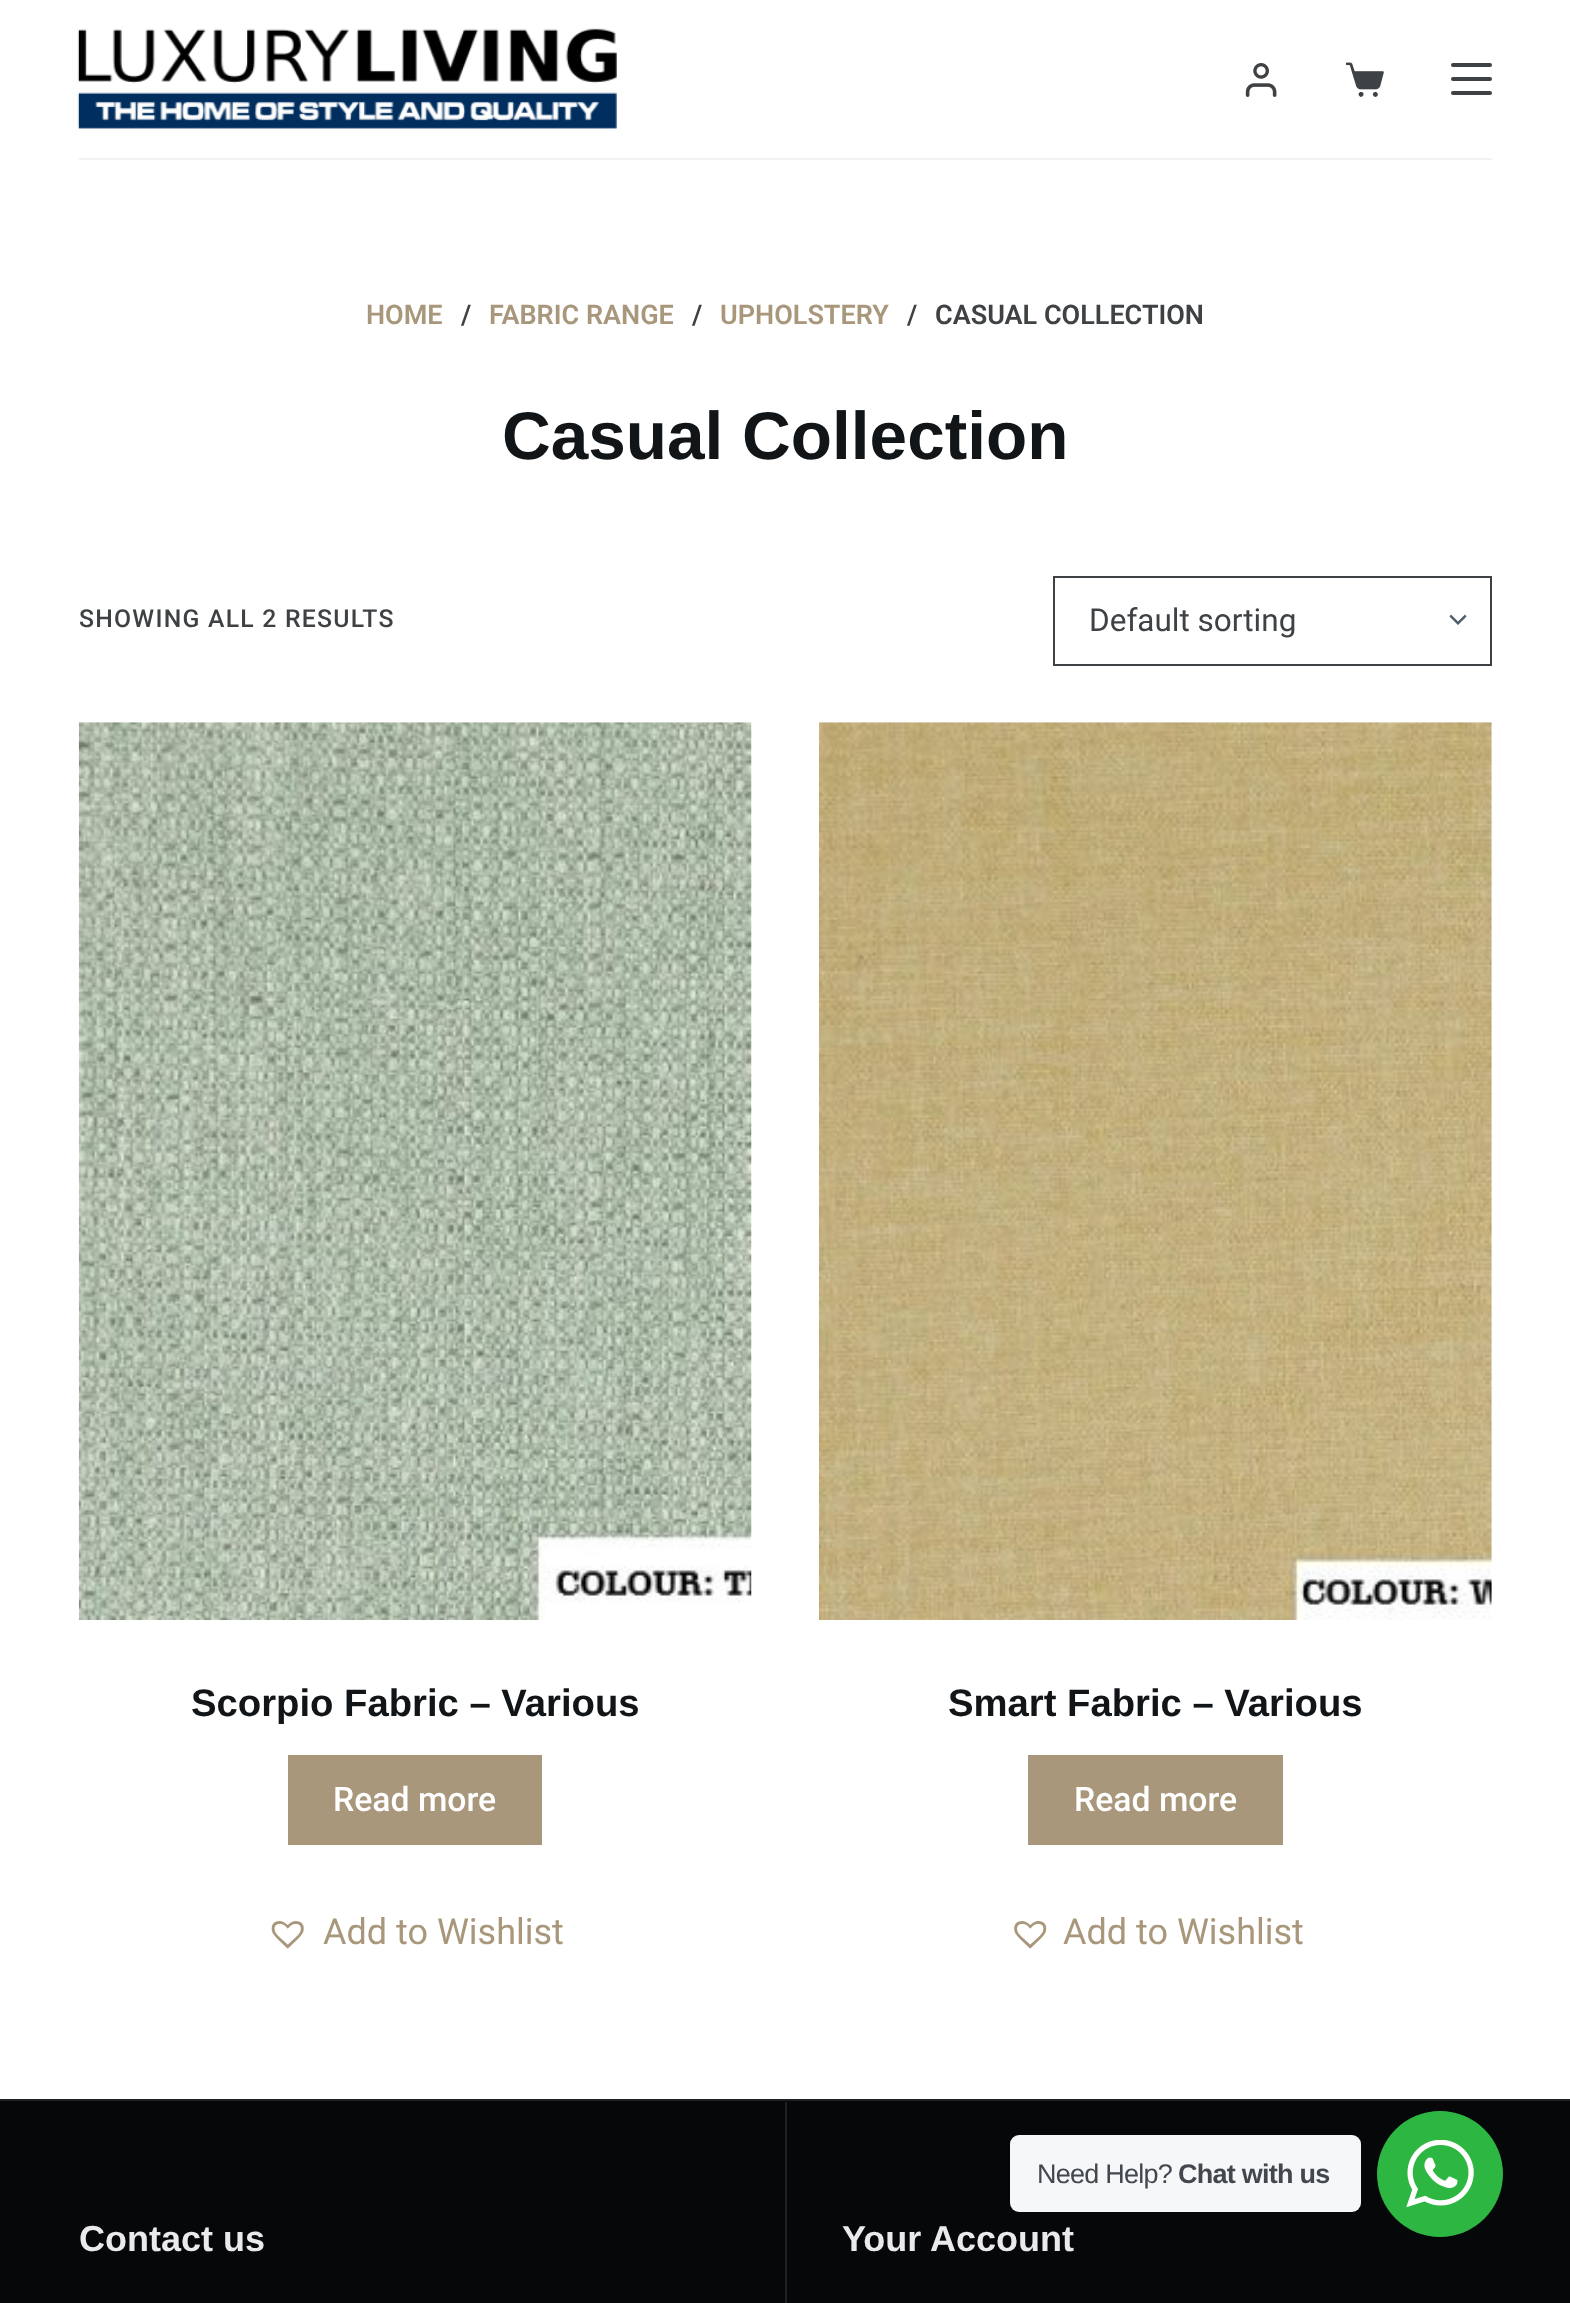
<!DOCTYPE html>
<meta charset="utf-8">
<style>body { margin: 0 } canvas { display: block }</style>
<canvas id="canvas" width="1570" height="2303"></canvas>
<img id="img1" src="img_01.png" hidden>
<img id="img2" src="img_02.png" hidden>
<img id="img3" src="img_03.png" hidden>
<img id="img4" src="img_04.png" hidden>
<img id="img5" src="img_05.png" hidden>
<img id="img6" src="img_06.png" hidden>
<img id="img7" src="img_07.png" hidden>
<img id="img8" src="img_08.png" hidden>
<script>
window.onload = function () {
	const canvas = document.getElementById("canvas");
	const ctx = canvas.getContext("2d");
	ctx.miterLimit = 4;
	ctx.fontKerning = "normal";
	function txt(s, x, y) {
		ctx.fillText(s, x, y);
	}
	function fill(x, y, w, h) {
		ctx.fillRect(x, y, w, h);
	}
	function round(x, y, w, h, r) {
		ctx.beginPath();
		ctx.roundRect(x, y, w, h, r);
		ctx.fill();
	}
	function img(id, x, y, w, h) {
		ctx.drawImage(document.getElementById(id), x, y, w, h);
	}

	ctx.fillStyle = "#FFFFFF";
	fill(0, 0, 1570, 2303);
	ctx.fillStyle = "#F2F2F2";
	fill(79, 158, 1413, 2);
	img("img1", 77, 28, 540, 101);
	img("img2", 1245, 63, 32, 34);
	img("img3", 1346, 62, 38, 35);
	ctx.fillStyle = "#3F4245";
	round(1451, 63, 41, 4, 2);
	round(1451, 77, 41, 4, 2);
	round(1451, 91, 41, 4, 2);
	ctx.fillStyle = "#4F5D6D";
	ctx.beginPath();
	ctx.moveTo(1465, 614.5);
	ctx.lineTo(1466.5, 616.5);
	ctx.lineTo(1458, 625);
	ctx.lineTo(1449.5, 616.5);
	ctx.lineTo(1451, 614.5);
	ctx.lineTo(1458, 621.5);
	ctx.closePath();
	ctx.fill();
	ctx.strokeStyle = "#3F4245";
	ctx.lineWidth = 2;
	ctx.strokeRect(1054, 577, 437, 88);
	img("img4", 78, 722, 674, 898);
	ctx.fillStyle = "#A8977B";
	fill(288, 1755, 254, 90);
	img("img5", 271, 1921, 33, 28);
	img("img6", 819, 722, 673, 898);
	fill(1028, 1755, 255, 90);
	img("img7", 1014, 1921, 33, 28);
	ctx.fillStyle = "#050709";
	fill(0, 2101, 1570, 202);
	ctx.fillStyle = "#1E2022";
	fill(0, 2099, 1570, 2);
	fill(785, 2102, 2, 201);
	ctx.fillStyle = "#F5F7F9";
	round(1010, 2135, 351, 77, 9);
	ctx.fillStyle = "#2DB742";
	ctx.beginPath();
	ctx.arc(1440, 2174, 63, 0, Math.PI * 2);
	ctx.fill();
	img("img8", 1406, 2140, 68, 67);
	ctx.font = "600 27px Roboto";
	ctx.fillStyle = "#A8977B";
	txt("HOME", 366, 324);
	ctx.fillStyle = "#3F4245";
	txt("/", 461, 324);
	ctx.fillStyle = "#A8977B";
	txt("FABRIC RANGE", 489, 324);
	ctx.fillStyle = "#3F4245";
	txt("/", 692, 324);
	ctx.fillStyle = "#A8977B";
	txt("UPHOLSTERY", 720, 324);
	ctx.fillStyle = "#3F4245";
	txt("/", 907, 324);
	txt("CASUAL COLLECTION", 935, 324);
	ctx.font = "bold 67.5px Liberation Sans";
	ctx.fillStyle = "#111518";
	txt("Casual Collection", 502, 459);
	ctx.letterSpacing = "1.25px";
	ctx.font = "500 24.75px Roboto";
	ctx.fillStyle = "#3F4245";
	txt("SHOWING ALL 2 RESULTS", 79, 627);
	ctx.letterSpacing = "0px";
	ctx.font = "31.5px Roboto";
	txt("Default sorting", 1089, 631);
	ctx.font = "bold 38.25px Liberation Sans";
	ctx.fillStyle = "#111518";
	txt("Scorpio Fabric – Various", 191, 1716);
	ctx.font = "500 33.75px Roboto";
	ctx.fillStyle = "#FFFFFF";
	txt("Read more", 333, 1811);
	ctx.font = "36px Roboto";
	ctx.fillStyle = "#A8977B";
	txt("Add to Wishlist", 323, 1944);
	ctx.font = "bold 38.25px Liberation Sans";
	ctx.fillStyle = "#111518";
	txt("Smart Fabric – Various", 948, 1716);
	ctx.font = "500 33.75px Roboto";
	ctx.fillStyle = "#FFFFFF";
	txt("Read more", 1074, 1811);
	ctx.font = "36px Roboto";
	ctx.fillStyle = "#A8977B";
	txt("Add to Wishlist", 1063, 1944);
	ctx.font = "bold 36px Liberation Sans";
	ctx.fillStyle = "#EAEAEC";
	txt("Contact us", 79, 2251);
	txt("Your Account", 842, 2251);
	ctx.letterSpacing = "-0.75px";
	ctx.font = "27px Liberation Sans";
	ctx.fillStyle = "#43474E";
	txt("Need Help?", 1037, 2183);
	ctx.font = "bold 27px Liberation Sans";
	txt("Chat with us", 1178, 2183);
};
</script>
